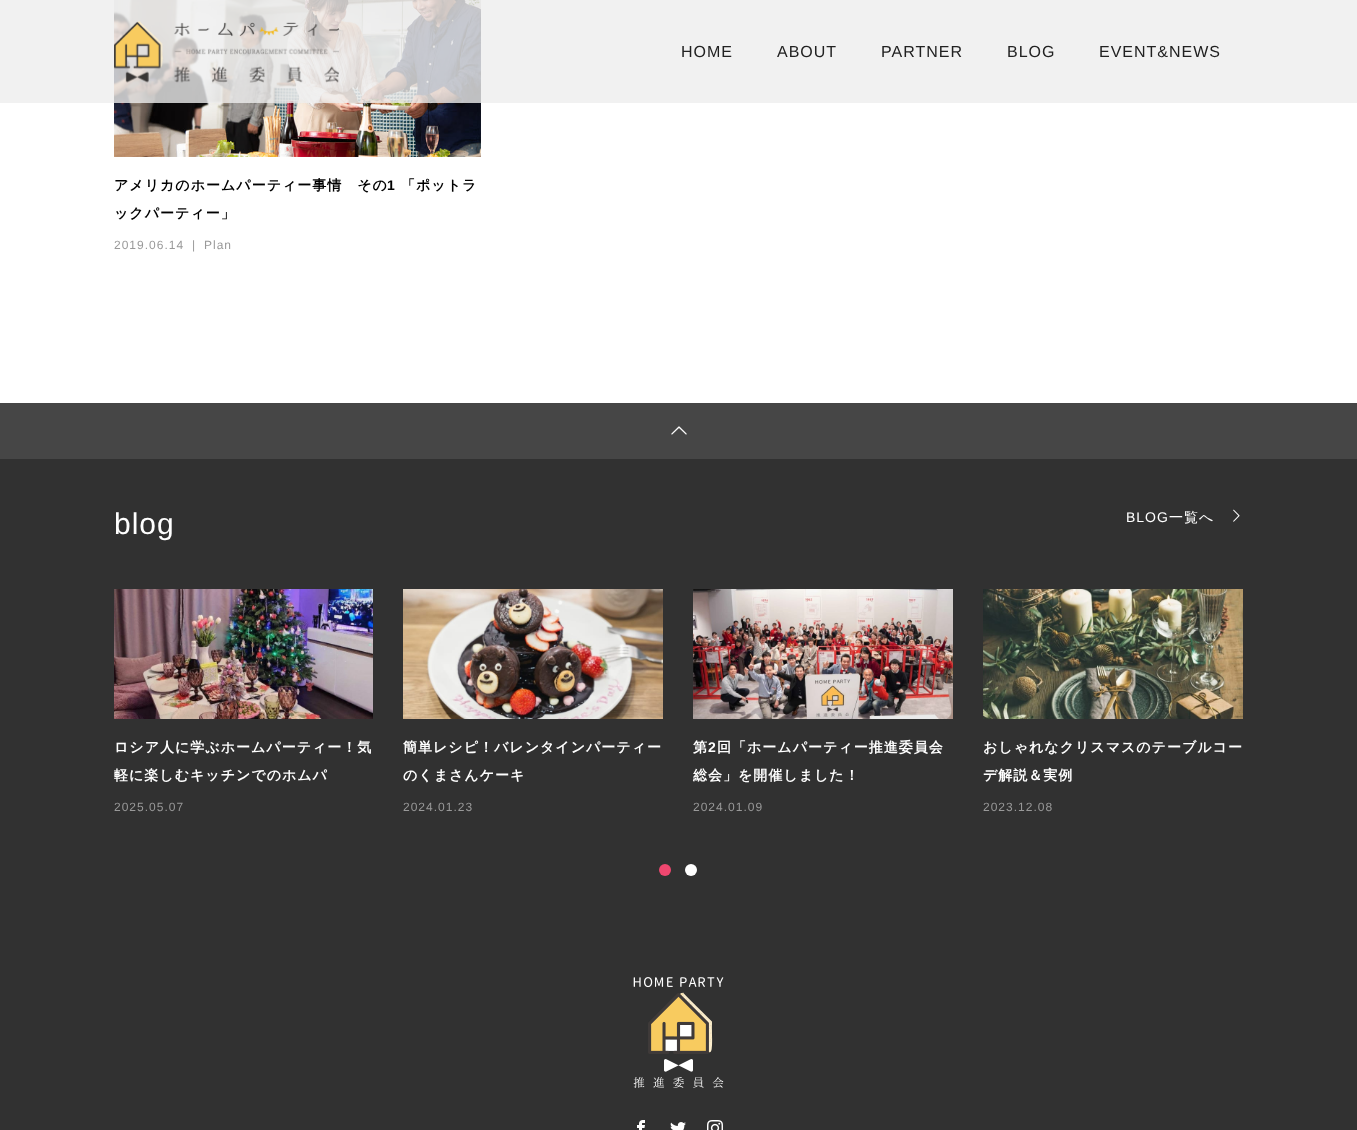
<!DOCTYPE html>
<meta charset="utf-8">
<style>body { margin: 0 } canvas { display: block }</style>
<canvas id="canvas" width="1357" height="1130"></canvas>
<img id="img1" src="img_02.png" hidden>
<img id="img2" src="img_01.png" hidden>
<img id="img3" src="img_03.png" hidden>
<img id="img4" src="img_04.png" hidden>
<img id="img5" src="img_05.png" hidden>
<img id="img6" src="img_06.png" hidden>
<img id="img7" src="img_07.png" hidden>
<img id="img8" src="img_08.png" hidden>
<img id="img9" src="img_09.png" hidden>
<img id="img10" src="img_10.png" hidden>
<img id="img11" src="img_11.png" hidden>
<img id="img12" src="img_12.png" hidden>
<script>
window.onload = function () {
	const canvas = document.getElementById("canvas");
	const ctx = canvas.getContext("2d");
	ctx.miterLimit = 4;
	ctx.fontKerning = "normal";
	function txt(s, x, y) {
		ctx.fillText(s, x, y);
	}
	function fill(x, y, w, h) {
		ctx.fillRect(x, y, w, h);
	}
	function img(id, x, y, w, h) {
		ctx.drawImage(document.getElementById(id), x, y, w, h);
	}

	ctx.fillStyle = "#FFFFFF";
	fill(0, 0, 1357, 1130);
	img("img1", 114, 0, 367, 157);
	ctx.fillStyle = "rgba(237, 237, 237, 0.8)";
	fill(0, 0, 1357, 103);
	img("img2", 114, 21, 225, 62);
	ctx.fillStyle = "#464646";
	fill(0, 403, 1357, 56);
	img("img3", 671, 426, 16, 9);
	ctx.fillStyle = "#313131";
	fill(0, 459, 1357, 671);
	img("img4", 1233, 509, 7, 13);
	img("img5", 114, 589, 259, 130);
	img("img6", 403, 589, 260, 130);
	img("img7", 693, 589, 260, 130);
	img("img8", 983, 589, 260, 130);
	ctx.fillStyle = "#EF476F";
	ctx.beginPath();
	ctx.arc(665, 870, 6, 0, Math.PI * 2);
	ctx.fill();
	ctx.fillStyle = "#FFFFFF";
	ctx.beginPath();
	ctx.arc(691, 870, 6, 0, Math.PI * 2);
	ctx.fill();
	img("img9", 633, 977, 91, 111);
	img("img10", 637, 1120, 8, 10);
	img("img11", 670, 1122, 16, 8);
	img("img12", 707, 1120, 16, 10);
	ctx.letterSpacing = "1px";
	ctx.font = "16px Liberation Sans";
	ctx.fillStyle = "#212121";
	txt("HOME", 681, 57);
	txt("ABOUT", 777, 57);
	txt("PARTNER", 881, 57);
	txt("BLOG", 1007, 57);
	txt("EVENT&NEWS", 1099, 57);
	ctx.font = "bold 14px WenQuanYi Zen Hei";
	ctx.fillStyle = "#000000";
	txt("アメリカのホームパーティー事情　その", 114, 190);
	ctx.font = "bold 14px Liberation Sans";
	txt("1", 387, 190);
	ctx.font = "bold 14px WenQuanYi Zen Hei";
	txt("「ポットラ", 401, 190);
	txt("ックパーティー」", 114, 218);
	ctx.font = "12px Liberation Sans";
	ctx.fillStyle = "#999999";
	txt("2019.06.14", 114, 249);
	txt("|", 192, 249);
	txt("Plan", 204, 249);
	ctx.font = "30px Liberation Sans";
	ctx.fillStyle = "#FFFFFF";
	txt("blog", 114, 534);
	ctx.font = "14px Liberation Sans";
	txt("BLOG", 1126, 522);
	ctx.font = "500 14px WenQuanYi Zen Hei";
	txt("一覧へ", 1169, 522);
	ctx.font = "bold 14px WenQuanYi Zen Hei";
	txt("ロシア人に学ぶホームパーティー！気", 114, 752);
	ctx.save();
	ctx.beginPath();
	ctx.rect(114, 589, 1130, 229);
	ctx.clip();
	txt("軽に楽しむキッチンでのホムパ", 114, 780);
	ctx.restore();
	ctx.font = "12px Liberation Sans";
	ctx.fillStyle = "#999999";
	txt("2025.05.07", 114, 811);
	ctx.font = "bold 14px WenQuanYi Zen Hei";
	ctx.fillStyle = "#FFFFFF";
	txt("簡単レシピ！バレンタインパーティー", 403, 752);
	txt("のくまさんケーキ", 403, 780);
	ctx.font = "12px Liberation Sans";
	ctx.fillStyle = "#999999";
	txt("2024.01.23", 403, 811);
	ctx.font = "bold 14px WenQuanYi Zen Hei";
	ctx.fillStyle = "#FFFFFF";
	txt("第", 693, 752);
	ctx.font = "bold 14px Liberation Sans";
	txt("2", 708, 752);
	ctx.font = "bold 14px WenQuanYi Zen Hei";
	txt("回「ホームパーティー推進委員会", 717, 752);
	txt("総会」を開催しました！", 693, 780);
	ctx.font = "12px Liberation Sans";
	ctx.fillStyle = "#999999";
	txt("2024.01.09", 693, 811);
	ctx.font = "bold 14px WenQuanYi Zen Hei";
	ctx.fillStyle = "#FFFFFF";
	txt("おしゃれなクリスマスのテーブルコー", 983, 752);
	txt("デ解説＆実例", 983, 780);
	ctx.font = "12px Liberation Sans";
	ctx.fillStyle = "#999999";
	txt("2023.12.08", 983, 811);
};
</script>
